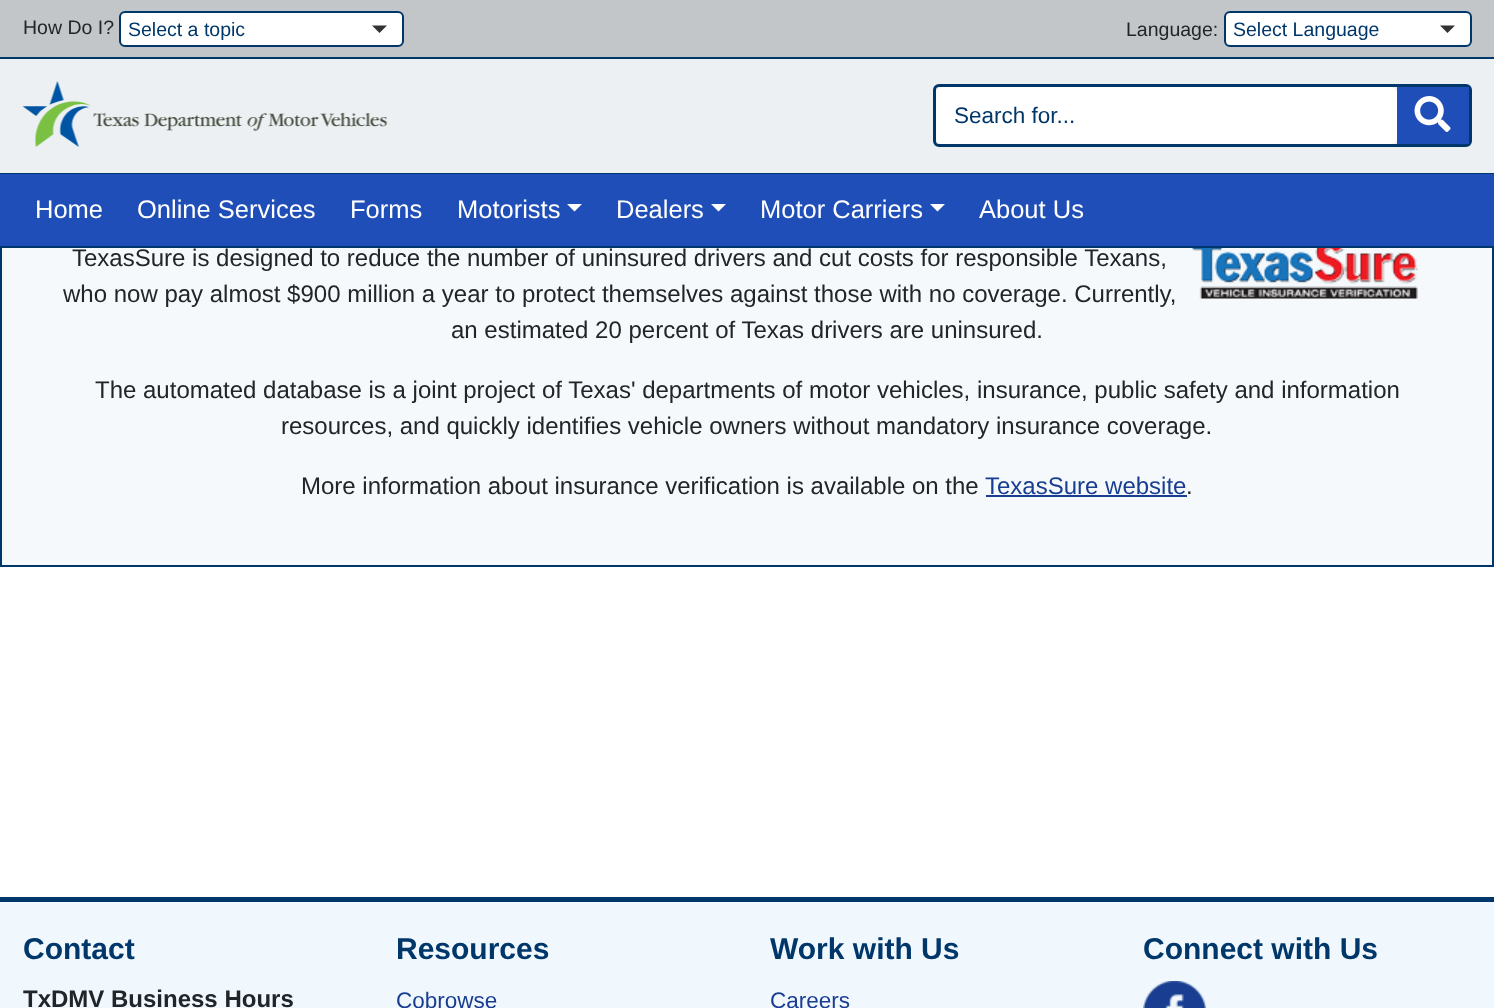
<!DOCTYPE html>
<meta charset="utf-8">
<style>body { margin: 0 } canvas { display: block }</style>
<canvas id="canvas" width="1494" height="1008"></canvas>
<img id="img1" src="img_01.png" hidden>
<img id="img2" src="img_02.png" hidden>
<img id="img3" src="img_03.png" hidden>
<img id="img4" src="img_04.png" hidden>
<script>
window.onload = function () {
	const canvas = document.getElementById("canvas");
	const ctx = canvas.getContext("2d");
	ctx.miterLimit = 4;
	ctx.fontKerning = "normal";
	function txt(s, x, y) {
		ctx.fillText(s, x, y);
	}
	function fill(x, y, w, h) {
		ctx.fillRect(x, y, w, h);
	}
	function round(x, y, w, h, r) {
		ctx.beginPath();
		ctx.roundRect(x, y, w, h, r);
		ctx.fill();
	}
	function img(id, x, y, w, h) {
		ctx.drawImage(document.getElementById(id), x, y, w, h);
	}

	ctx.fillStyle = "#FFFFFF";
	fill(0, 0, 1494, 1008);
	ctx.fillStyle = "#C2C6C9";
	fill(0, 0, 1494, 57);
	ctx.fillStyle = "#00376A";
	fill(0, 57, 1494, 2);
	ctx.fillStyle = "#FFFFFF";
	ctx.beginPath();
	ctx.roundRect(120, 12, 283, 34, 5);
	ctx.fill();
	ctx.strokeStyle = "#00376A";
	ctx.lineWidth = 2;
	ctx.stroke();
	ctx.fillStyle = "#333333";
	ctx.beginPath();
	ctx.moveTo(372, 25.5);
	ctx.lineTo(387, 25.5);
	ctx.lineTo(379.5, 33);
	ctx.closePath();
	ctx.fill();
	ctx.fillStyle = "#FFFFFF";
	ctx.beginPath();
	ctx.roundRect(1225, 12, 246, 34, 5);
	ctx.fill();
	ctx.stroke();
	ctx.fillStyle = "#333333";
	ctx.beginPath();
	ctx.moveTo(1440, 25.5);
	ctx.lineTo(1455, 25.5);
	ctx.lineTo(1447.5, 33);
	ctx.closePath();
	ctx.fill();
	ctx.fillStyle = "#ECF0F3";
	fill(0, 59, 1494, 114);
	ctx.fillStyle = "#00376A";
	fill(0, 173, 1494, 1);
	img("img1", 22, 81, 366, 66);
	ctx.beginPath();
	ctx.roundRect(934.5, 85.5, 536, 60, 4.5);
	ctx.lineWidth = 3;
	ctx.stroke();
	ctx.fillStyle = "#FFFFFF";
	round(936, 87, 461, 57, 6);
	ctx.fillStyle = "#204EB8";
	fill(1397, 87, 72, 57);
	img("img2", 1414, 96, 37, 36);
	ctx.fillStyle = "#F5F9FC";
	fill(2, 248, 1490, 317);
	ctx.lineWidth = 2;
	ctx.strokeRect(1, 202, 1492, 364);
	ctx.fillStyle = "#204EB8";
	fill(0, 174, 1494, 72);
	ctx.fillStyle = "#00376A";
	fill(0, 246, 1494, 2);
	ctx.fillStyle = "#FFFFFF";
	ctx.beginPath();
	ctx.moveTo(567, 204);
	ctx.lineTo(582, 204);
	ctx.lineTo(574.5, 211.5);
	ctx.closePath();
	ctx.fill();
	ctx.beginPath();
	ctx.moveTo(711, 204);
	ctx.lineTo(726, 204);
	ctx.lineTo(718.5, 211.5);
	ctx.closePath();
	ctx.fill();
	ctx.beginPath();
	ctx.moveTo(930, 204);
	ctx.lineTo(945, 204);
	ctx.lineTo(937.5, 211.5);
	ctx.closePath();
	ctx.fill();
	img("img3", 1192, 248, 226, 51);
	ctx.fillStyle = "#193D91";
	fill(986, 495, 201, 2);
	ctx.fillStyle = "#00376A";
	fill(0, 897, 1494, 5);
	ctx.fillStyle = "#F0F7FD";
	fill(0, 902, 1494, 106);
	img("img4", 1143, 981, 63, 27);
	ctx.font = "19.5px Liberation Sans";
	ctx.fillStyle = "#212529";
	txt("How Do I?", 23, 34);
	ctx.fillStyle = "#00376A";
	txt("Select a topic", 128, 36);
	ctx.fillStyle = "#212529";
	txt("Language:", 1126, 36);
	ctx.fillStyle = "#00376A";
	txt("Select Language", 1233, 36);
	ctx.font = "22.5px Liberation Sans";
	txt("Search for...", 954, 123);
	ctx.font = "25.5px Liberation Sans";
	ctx.fillStyle = "#FFFFFF";
	txt("Home", 35, 218);
	txt("Online Services", 137, 218);
	txt("Forms", 350, 218);
	txt("Motorists", 457, 218);
	txt("Dealers", 616, 218);
	txt("Motor Carriers", 760, 218);
	txt("About Us", 979, 218);
	ctx.font = "24px Liberation Sans";
	ctx.fillStyle = "#212529";
	txt("TexasSure is designed to reduce the number of uninsured drivers and cut costs for responsible Texans,", 72, 266);
	txt("who now pay almost $900 million a year to protect themselves against those with no coverage. Currently,", 63, 302);
	txt("an estimated 20 percent of Texas drivers are uninsured.", 451, 338);
	txt("The automated database is a joint project of Texas' departments of motor vehicles, insurance, public safety and information", 95, 398);
	txt("resources, and quickly identifies vehicle owners without mandatory insurance coverage.", 281, 434);
	txt("More information about insurance verification is available on the", 301, 494);
	ctx.fillStyle = "#193D91";
	txt("TexasSure website", 985, 494);
	ctx.fillStyle = "#212529";
	txt(".", 1186, 494);
	ctx.font = "bold 30px Liberation Sans";
	ctx.fillStyle = "#00376A";
	txt("Contact", 23, 959);
	ctx.font = "bold 24px Liberation Sans";
	ctx.fillStyle = "#212529";
	txt("TxDMV Business Hours", 23, 1007);
	ctx.font = "bold 30px Liberation Sans";
	ctx.fillStyle = "#00376A";
	txt("Resources", 396, 959);
	ctx.font = "22.5px Liberation Sans";
	ctx.fillStyle = "#193D91";
	txt("Cobrowse", 396, 1008);
	ctx.font = "bold 30px Liberation Sans";
	ctx.fillStyle = "#00376A";
	txt("Work with Us", 770, 959);
	ctx.font = "22.5px Liberation Sans";
	ctx.fillStyle = "#193D91";
	txt("Careers", 770, 1008);
	ctx.font = "bold 30px Liberation Sans";
	ctx.fillStyle = "#00376A";
	txt("Connect with Us", 1143, 959);
};
</script>
